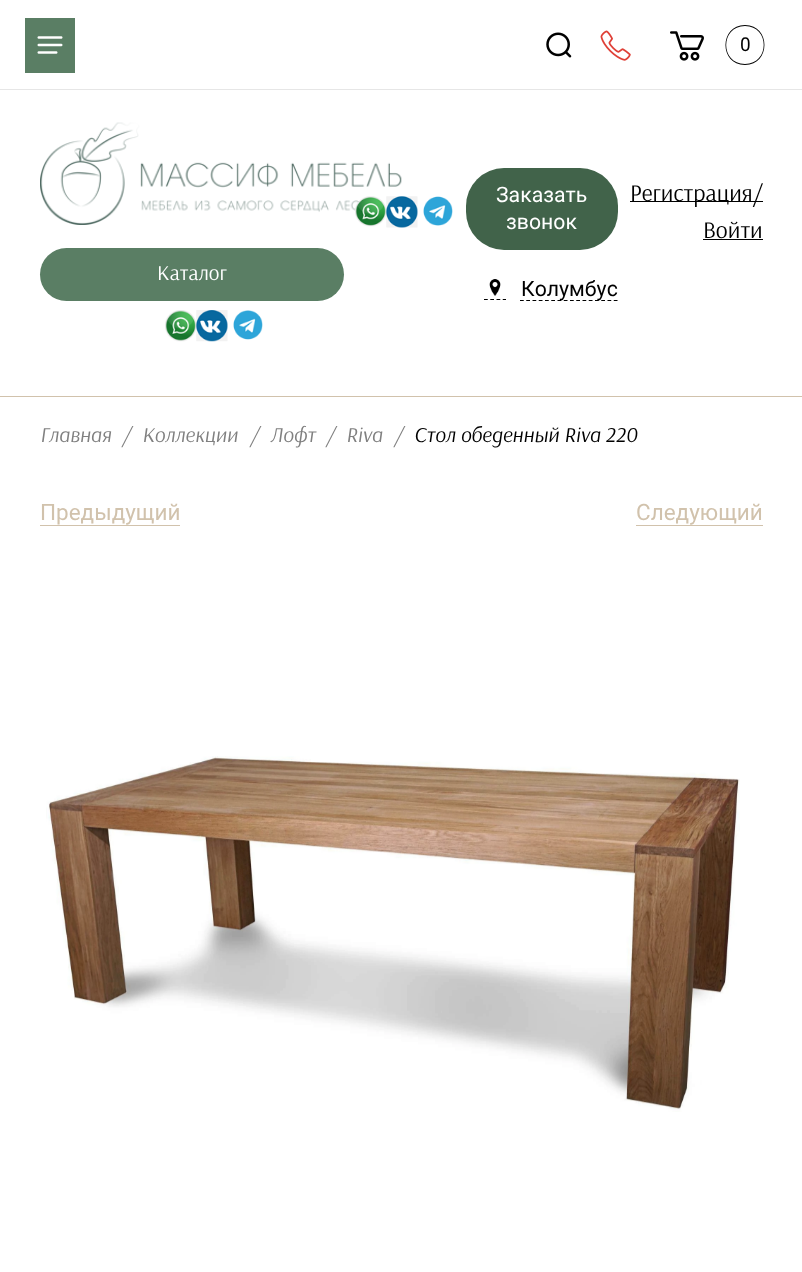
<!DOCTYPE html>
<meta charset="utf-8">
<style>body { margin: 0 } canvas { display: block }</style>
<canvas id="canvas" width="802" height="1272"></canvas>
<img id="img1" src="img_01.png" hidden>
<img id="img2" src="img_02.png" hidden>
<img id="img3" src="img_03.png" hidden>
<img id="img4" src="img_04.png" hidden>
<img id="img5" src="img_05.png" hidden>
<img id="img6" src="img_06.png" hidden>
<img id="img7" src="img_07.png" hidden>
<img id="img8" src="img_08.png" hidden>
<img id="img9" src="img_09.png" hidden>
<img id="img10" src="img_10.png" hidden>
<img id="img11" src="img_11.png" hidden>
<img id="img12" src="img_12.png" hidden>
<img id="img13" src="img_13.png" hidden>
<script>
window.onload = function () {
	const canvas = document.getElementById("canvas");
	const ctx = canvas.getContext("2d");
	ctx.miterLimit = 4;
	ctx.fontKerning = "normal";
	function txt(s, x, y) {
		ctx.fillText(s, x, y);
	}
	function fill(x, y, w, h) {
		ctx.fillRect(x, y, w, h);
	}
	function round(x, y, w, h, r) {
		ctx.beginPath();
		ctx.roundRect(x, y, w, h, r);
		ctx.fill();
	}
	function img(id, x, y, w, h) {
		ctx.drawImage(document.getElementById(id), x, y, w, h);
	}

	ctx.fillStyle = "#FFFFFF";
	fill(0, 0, 802, 1272);
	ctx.fillStyle = "#D1C2AC";
	fill(0, 396, 802, 1);
	ctx.fillStyle = "#E6E6E6";
	fill(0, 89, 802, 1);
	ctx.fillStyle = "#5A7E64";
	fill(25, 18, 50, 55);
	img("img1", 37, 36, 26, 18);
	img("img2", 546, 32, 26, 26);
	img("img3", 600, 30, 31, 31);
	img("img4", 670, 31, 34, 30);
	ctx.fillStyle = "#000000";
	ctx.beginPath();
	ctx.moveTo(745, 25);
	ctx.bezierCurveTo(771, 25, 771, 65, 745, 65);
	ctx.bezierCurveTo(719, 65, 719, 25, 745, 25);
	ctx.closePath();
	ctx.moveTo(745, 26);
	ctx.bezierCurveTo(720, 26, 720, 64, 745, 64);
	ctx.bezierCurveTo(770, 64, 770, 26, 745, 26);
	ctx.closePath();
	ctx.fill("evenodd");
	img("img5", 40, 122, 362, 103);
	ctx.fillStyle = "#5A7E64";
	round(40, 248, 304, 53, 26.5);
	img("img6", 165, 310, 32, 32);
	img("img7", 196, 310, 32, 32);
	img("img8", 233, 310, 30, 30);
	img("img9", 355, 196, 32, 31);
	img("img10", 386, 196, 32, 32);
	img("img11", 423, 196, 30, 30);
	ctx.fillStyle = "#41634A";
	round(466, 168, 152, 82, 38);
	ctx.beginPath();
	ctx.moveTo(484, 299.5);
	ctx.lineTo(506, 299.5);
	ctx.strokeStyle = "#000000";
	ctx.lineWidth = 1.2;
	ctx.setLineDash([3.75, 2.5]);
	ctx.stroke();
	ctx.beginPath();
	ctx.moveTo(520, 300.5);
	ctx.lineTo(617.5, 300.5);
	ctx.stroke();
	img("img12", 489, 279, 12, 17);
	ctx.fillStyle = "#000000";
	fill(630, 201, 133, 1);
	fill(703, 239, 60, 1);
	ctx.fillStyle = "#D1C2AC";
	fill(40, 525, 140, 1);
	fill(636, 525, 127, 1);
	img("img13", 46, 756, 694, 356);
	ctx.font = "19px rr";
	ctx.fillStyle = "#000000";
	txt("0", 740, 51);
	ctx.font = "21.25px Arsenal";
	ctx.fillStyle = "#FFFFFF";
	txt("Каталог", 157, 280);
	ctx.font = "21.25px rr";
	txt("Заказать", 496, 202);
	txt("звонок", 506, 229);
	ctx.fillStyle = "#000000";
	txt("Колумбус", 521, 296);
	ctx.font = "23.75px Arsenal";
	txt("Регистрация/", 630, 201);
	txt("Войти", 703, 238);
	ctx.font = "italic 21.25px Arsenal";
	ctx.fillStyle = "#808080";
	txt("Главная", 40, 442);
	txt("/", 122, 442);
	txt("Коллекции", 142, 442);
	txt("/", 250, 442);
	txt("Лофт", 270, 442);
	txt("/", 326, 442);
	txt("Riva", 346, 442);
	txt("/", 394, 442);
	ctx.fillStyle = "#000000";
	txt("Стол обеденный Riva 220", 414, 442);
	ctx.font = "22.5px rr";
	ctx.fillStyle = "#D1C2AC";
	txt("Предыдущий", 40, 520);
	txt("Следующий", 636, 520);
};
</script>
